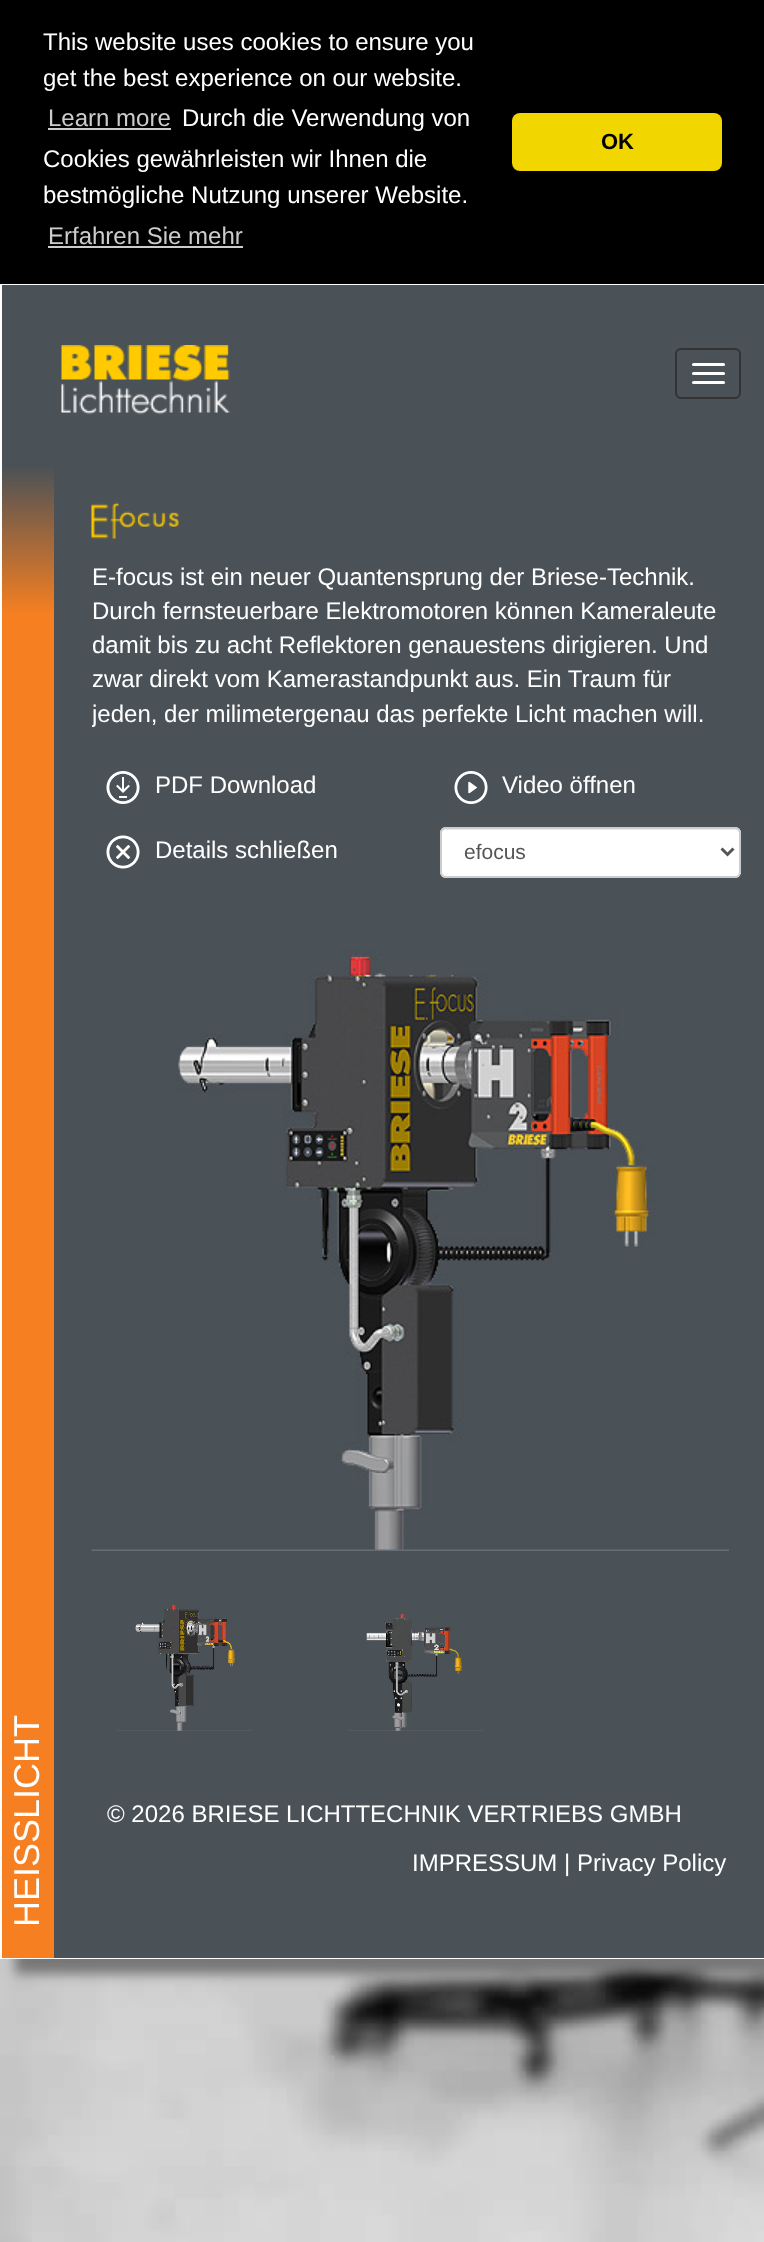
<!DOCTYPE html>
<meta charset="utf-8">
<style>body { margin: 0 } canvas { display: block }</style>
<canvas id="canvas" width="764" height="2242"></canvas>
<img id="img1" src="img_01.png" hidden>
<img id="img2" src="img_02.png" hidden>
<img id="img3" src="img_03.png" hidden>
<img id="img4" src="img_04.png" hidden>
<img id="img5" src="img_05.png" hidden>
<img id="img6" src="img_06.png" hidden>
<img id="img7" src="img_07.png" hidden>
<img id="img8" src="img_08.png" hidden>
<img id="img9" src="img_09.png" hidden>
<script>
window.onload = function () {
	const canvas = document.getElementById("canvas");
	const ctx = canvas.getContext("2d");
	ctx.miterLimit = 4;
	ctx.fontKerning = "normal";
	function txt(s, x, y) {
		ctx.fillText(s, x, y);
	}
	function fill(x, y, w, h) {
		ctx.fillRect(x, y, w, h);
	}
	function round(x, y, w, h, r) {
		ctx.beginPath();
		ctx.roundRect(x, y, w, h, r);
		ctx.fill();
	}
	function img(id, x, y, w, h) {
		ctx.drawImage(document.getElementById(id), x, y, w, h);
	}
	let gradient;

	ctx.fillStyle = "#FFFFFF";
	fill(0, 0, 764, 2242);
	img("img1", 0, 1959, 764, 283);
	ctx.fillStyle = "#777777";
	ctx.filter = "blur(6px)";
	ctx.beginPath();
	ctx.rect(15, 299, 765, 1675);
	ctx.fill();
	ctx.filter = "none";
	ctx.fillStyle = "#000000";
	fill(0, 0, 764, 284);
	ctx.fillStyle = "#CCCCCC";
	fill(48, 128, 123, 2);
	fill(48, 246, 195, 2);
	ctx.fillStyle = "#F1D600";
	round(512, 113, 210, 58, 8);
	ctx.strokeStyle = "#FFFFFF";
	ctx.lineWidth = 2;
	ctx.strokeRect(1, 285, 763, 1673);
	ctx.fillStyle = "#4A5157";
	fill(2, 285, 762, 180);
	img("img2", 61, 345, 169, 70);
	ctx.beginPath();
	ctx.roundRect(676, 349, 64, 49, 5);
	ctx.strokeStyle = "#333333";
	ctx.stroke();
	ctx.fillStyle = "#FFFFFF";
	round(692, 363, 33, 3, 1.5);
	round(692, 372, 33, 3, 1.5);
	round(692, 381, 33, 3, 1.5);
	ctx.fillStyle = "#4A5157";
	fill(54, 465, 710, 1493);
	img("img3", 91, 502, 88, 37);
	img("img4", 106, 771, 34, 33);
	img("img5", 454, 771, 34, 33);
	img("img6", 106, 835, 34, 34);
	ctx.fillStyle = "#FFFFFF";
	round(440, 827, 301, 51, 6);
	ctx.fillStyle = "#ECECEC";
	ctx.beginPath();
	ctx.moveTo(446, 830);
	ctx.lineTo(735, 830);
	ctx.bezierCurveTo(737, 830, 740, 832, 740, 834);
	ctx.lineTo(740, 833);
	ctx.bezierCurveTo(740, 830, 738, 828, 735, 828);
	ctx.lineTo(446, 828);
	ctx.bezierCurveTo(443, 828, 441, 830, 441, 833);
	ctx.lineTo(441, 834);
	ctx.bezierCurveTo(441, 832, 443, 830, 446, 830);
	ctx.closePath();
	ctx.fill();
	ctx.beginPath();
	ctx.roundRect(441, 828, 299, 49, 5);
	ctx.strokeStyle = "#CCCCCC";
	ctx.stroke();
	ctx.beginPath();
	ctx.moveTo(721.5, 848.5);
	ctx.lineTo(727.5, 854.5);
	ctx.lineTo(733.5, 848.5);
	ctx.strokeStyle = "#555555";
	ctx.lineWidth = 3;
	ctx.stroke();
	img("img7", 91, 950, 638, 601);
	img("img8", 117, 1605, 135, 126);
	img("img9", 348, 1614, 135, 117);
	gradient = ctx.createLinearGradient(28, 1958, 28, 465);
	gradient.addColorStop(0, "#F67F21");
	gradient.addColorStop(0.9, "#F67F21");
	gradient.addColorStop(1, "#4A5157");
	ctx.fillStyle = gradient;
	fill(2, 465, 52, 1493);
	ctx.font = "24px Liberation Sans";
	ctx.fillStyle = "#FFFFFF";
	txt("This website uses cookies to ensure you", 43, 50);
	txt("get the best experience on our website.", 43, 86);
	ctx.fillStyle = "#CCCCCC";
	txt("Learn more", 48, 126);
	ctx.fillStyle = "#FFFFFF";
	txt("Durch die Verwendung von", 182, 126);
	txt("Cookies gewährleisten wir Ihnen die", 43, 167);
	txt("bestmögliche Nutzung unserer Website.", 43, 203);
	ctx.fillStyle = "#CCCCCC";
	txt("Erfahren Sie mehr", 48, 244);
	ctx.font = "bold 22px Liberation Sans";
	ctx.fillStyle = "#000000";
	txt("OK", 601, 149);
	ctx.font = "24px Liberation Sans";
	ctx.fillStyle = "#FFFFFF";
	txt("E-focus ist ein neuer Quantensprung der Briese-Technik.", 92, 585);
	txt("Durch fernsteuerbare Elektromotoren können Kameraleute", 92, 619);
	txt("damit bis zu acht Reflektoren genauestens dirigieren. Und", 92, 653);
	txt("zwar direkt vom Kamerastandpunkt aus. Ein Traum für", 92, 687);
	ctx.save();
	ctx.beginPath();
	ctx.rect(92, 561, 649, 353);
	ctx.clip();
	txt("jeden, der milimetergenau das perfekte Licht machen will.", 92, 722);
	ctx.restore();
	txt("PDF Download", 155, 793);
	txt("Video öffnen", 502, 793);
	txt("Details schließen", 155, 858);
	ctx.font = "21px Liberation Sans";
	ctx.fillStyle = "#555555";
	txt("efocus", 464, 859);
	ctx.font = "36px Liberation Sans";
	ctx.fillStyle = "#FFFFFF";
	ctx.save();
	ctx.translate(39, 1927);
	ctx.rotate(-90 * Math.PI / 180);
	ctx.fillText("HEISSLICHT", 0, 0);
	ctx.restore();
	ctx.font = "24px Liberation Sans";
	txt("© 2026 BRIESE LICHTTECHNIK VERTRIEBS GMBH", 107, 1822);
	txt("IMPRESSUM | Privacy Policy", 412, 1871);
};
</script>
